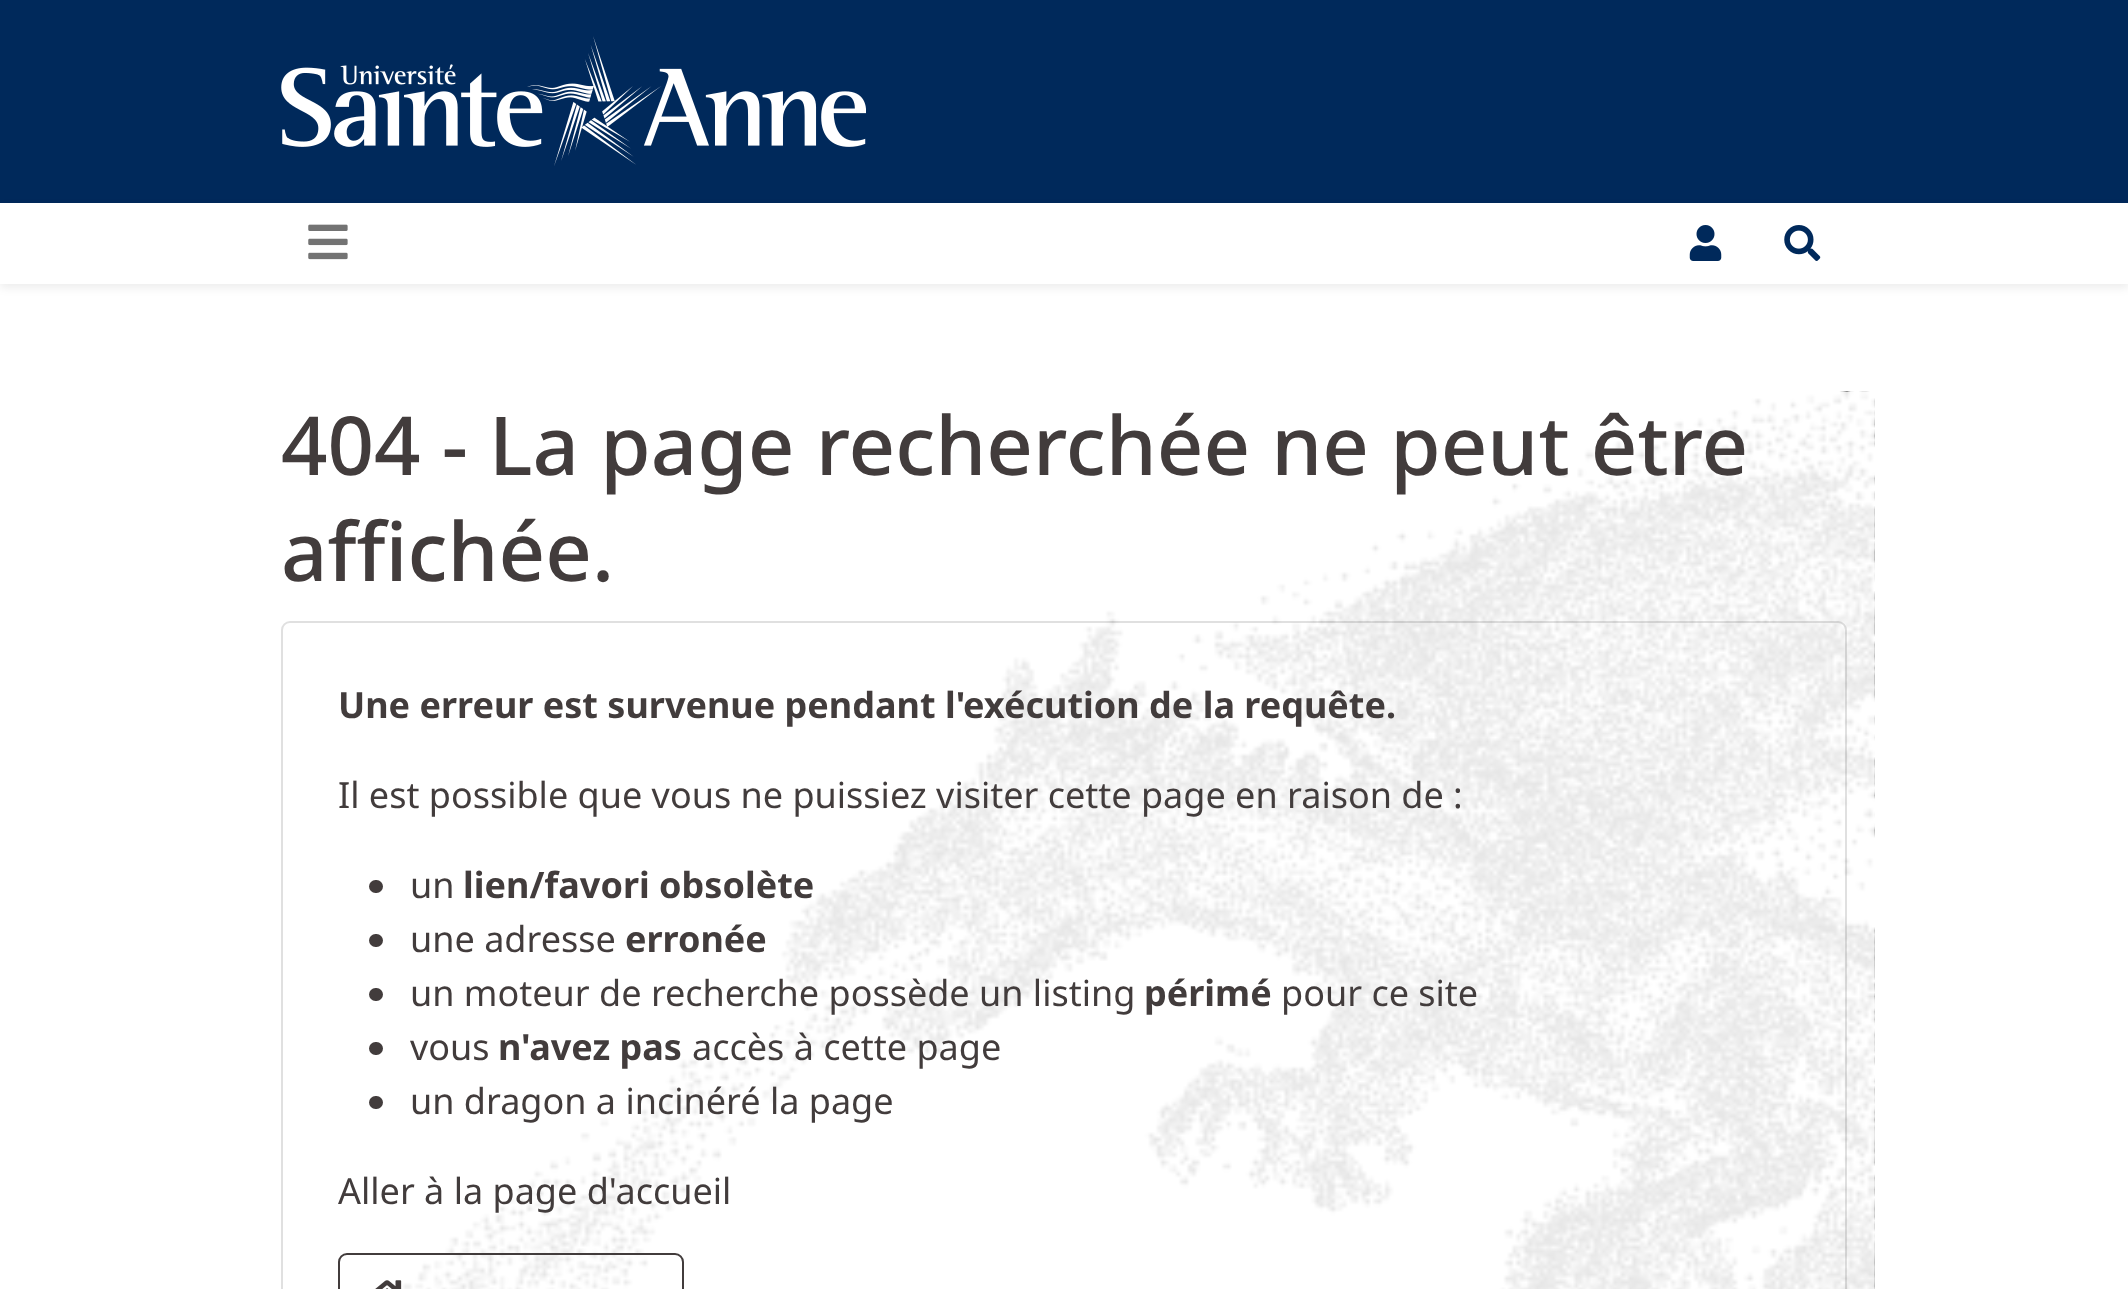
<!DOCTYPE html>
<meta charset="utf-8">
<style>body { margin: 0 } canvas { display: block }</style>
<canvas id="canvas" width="2128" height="1289"></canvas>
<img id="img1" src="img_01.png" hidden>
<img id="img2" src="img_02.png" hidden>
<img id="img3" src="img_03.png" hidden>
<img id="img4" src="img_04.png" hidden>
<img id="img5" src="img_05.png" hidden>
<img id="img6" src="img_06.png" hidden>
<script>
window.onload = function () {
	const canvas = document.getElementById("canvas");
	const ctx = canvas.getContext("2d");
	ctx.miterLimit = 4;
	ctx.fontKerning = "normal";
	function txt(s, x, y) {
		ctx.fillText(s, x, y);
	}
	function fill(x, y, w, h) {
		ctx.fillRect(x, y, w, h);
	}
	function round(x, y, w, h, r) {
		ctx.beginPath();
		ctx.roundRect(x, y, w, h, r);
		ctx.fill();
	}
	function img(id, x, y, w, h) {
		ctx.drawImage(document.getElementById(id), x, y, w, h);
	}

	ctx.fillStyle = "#FFFFFF";
	fill(0, 0, 2128, 1289);
	ctx.fillStyle = "#00295B";
	fill(0, 0, 2128, 203);
	img("img1", 281, 36, 585, 130);
	ctx.fillStyle = "rgba(0, 0, 0, 0.07)";
	ctx.filter = "blur(4.5px)";
	ctx.beginPath();
	ctx.rect(0, 207, 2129, 81);
	ctx.fill();
	ctx.filter = "none";
	ctx.fillStyle = "#FFFFFF";
	fill(0, 203, 2128, 81);
	img("img2", 308, 224, 40, 36);
	img("img3", 1689, 225, 33, 36);
	img("img4", 1784, 225, 37, 36);
	img("img5", 402, 391, 1473, 898);
	ctx.beginPath();
	ctx.roundRect(282, 622, 1564, 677, 8);
	ctx.strokeStyle = "rgba(0, 0, 0, 0.12)";
	ctx.lineWidth = 2;
	ctx.stroke();
	ctx.fillStyle = "#423C3C";
	round(369, 880, 14, 13, 6.5);
	round(369, 934, 14, 13, 6.5);
	round(369, 988, 14, 13, 6.5);
	round(369, 1042, 14, 13, 6.5);
	round(369, 1096, 14, 13, 6.5);
	ctx.beginPath();
	ctx.roundRect(339, 1254, 344, 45, 8);
	ctx.strokeStyle = "#423C3C";
	ctx.stroke();
	img("img6", 375, 1280, 27, 9);
	ctx.font = "500 81.4px Noto Sans";
	txt("404 - La page recherchée ne peut être", 281, 475);
	txt("affichée.", 281, 581);
	ctx.font = "bold 36px Noto Sans";
	txt("Une erreur est survenue pendant l'exécution de la requête.", 338, 718);
	ctx.font = "36px Noto Sans";
	txt("Il est possible que vous ne puissiez visiter cette page en raison de :", 338, 808);
	txt("un", 410, 898);
	ctx.font = "bold 36px Noto Sans";
	txt("lien/favori obsolète", 463, 898);
	ctx.font = "36px Noto Sans";
	txt("une adresse", 410, 952);
	ctx.font = "bold 36px Noto Sans";
	txt("erronée", 625, 952);
	ctx.font = "36px Noto Sans";
	txt("un moteur de recherche possède un listing", 410, 1006);
	ctx.font = "bold 36px Noto Sans";
	txt("périmé", 1144, 1006);
	ctx.font = "36px Noto Sans";
	txt("pour ce site", 1281, 1006);
	txt("vous", 410, 1060);
	ctx.font = "bold 36px Noto Sans";
	txt("n'avez pas", 498, 1060);
	ctx.font = "36px Noto Sans";
	txt("accès à cette page", 692, 1060);
	txt("un dragon a incinéré la page", 410, 1114);
	txt("Aller à la page d'accueil", 338, 1204);
};
</script>
